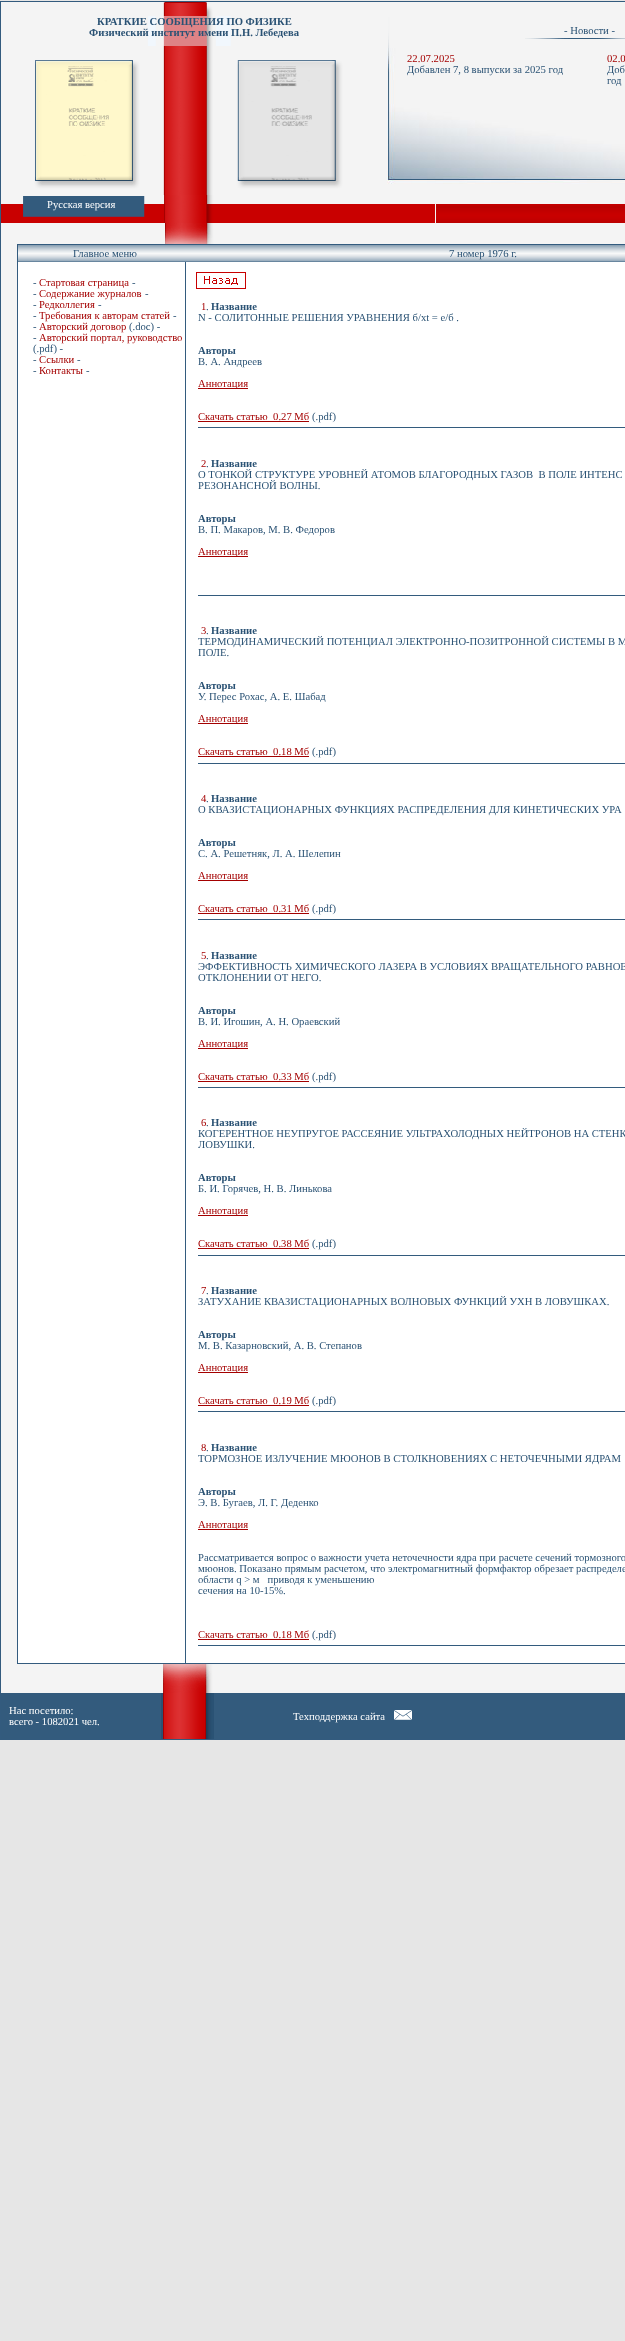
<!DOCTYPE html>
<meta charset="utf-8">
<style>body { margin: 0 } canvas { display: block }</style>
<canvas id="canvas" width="625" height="2341"></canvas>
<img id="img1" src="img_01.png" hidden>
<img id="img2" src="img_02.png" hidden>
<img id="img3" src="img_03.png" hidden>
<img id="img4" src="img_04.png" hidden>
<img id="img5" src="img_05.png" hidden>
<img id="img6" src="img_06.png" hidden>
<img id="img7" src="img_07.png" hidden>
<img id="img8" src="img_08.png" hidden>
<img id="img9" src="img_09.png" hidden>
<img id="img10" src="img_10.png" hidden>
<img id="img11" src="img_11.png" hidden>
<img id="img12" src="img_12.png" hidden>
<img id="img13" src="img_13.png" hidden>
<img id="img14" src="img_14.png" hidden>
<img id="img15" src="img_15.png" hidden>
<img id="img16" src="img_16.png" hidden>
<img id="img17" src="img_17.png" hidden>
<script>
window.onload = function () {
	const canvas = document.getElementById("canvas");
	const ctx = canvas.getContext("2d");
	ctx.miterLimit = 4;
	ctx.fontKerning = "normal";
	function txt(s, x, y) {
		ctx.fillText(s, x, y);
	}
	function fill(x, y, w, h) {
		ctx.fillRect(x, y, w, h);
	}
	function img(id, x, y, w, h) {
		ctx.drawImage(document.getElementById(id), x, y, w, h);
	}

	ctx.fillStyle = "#E6E6E6";
	fill(0, 0, 625, 2341);
	ctx.strokeStyle = "#335B7E";
	ctx.strokeRect(0.5, 1.5, 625, 1738);
	img("img1", 1, 2, 386, 46);
	img("img2", 387, 2, 238, 46);
	img("img3", 1, 48, 386, 147);
	img("img4", 387, 48, 200, 147);
	img("img5", 587, 48, 38, 147);
	img("img6", 1, 195, 161, 28);
	img("img7", 162, 195, 53, 28);
	img("img8", 215, 195, 172, 28);
	ctx.fillStyle = "#F4F4F4";
	fill(387, 195, 238, 9);
	ctx.fillStyle = "#C90000";
	fill(387, 204, 48, 19);
	ctx.fillStyle = "#F4F4F4";
	fill(435, 204, 1, 19);
	img("img9", 436, 204, 189, 19);
	img("img10", 436, 205, 189, 17);
	fill(1, 223, 161, 21);
	img("img11", 162, 223, 52, 21);
	fill(214, 223, 411, 21);
	fill(1, 244, 16, 1420);
	ctx.strokeRect(17.5, 244.5, 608, 1419);
	img("img12", 18, 245, 167, 17);
	img("img13", 185, 245, 440, 17);
	ctx.fillStyle = "#FFFFFF";
	fill(18, 262, 167, 1401);
	ctx.fillStyle = "#335B7D";
	fill(185, 262, 1, 1401);
	ctx.fillStyle = "#FFFFFF";
	fill(186, 262, 439, 1401);
	img("img14", 196, 272, 50, 17);
	ctx.fillStyle = "#A40000";
	fill(198, 388, 50, 1);
	fill(198, 421, 111, 1);
	ctx.fillStyle = "#335B7D";
	fill(198, 427, 427, 1);
	ctx.fillStyle = "#A40000";
	fill(198, 556, 50, 1);
	ctx.fillStyle = "#335B7D";
	fill(198, 595, 427, 1);
	ctx.fillStyle = "#A40000";
	fill(198, 723, 50, 1);
	fill(198, 756, 111, 1);
	ctx.fillStyle = "#335B7D";
	fill(198, 763, 427, 1);
	ctx.fillStyle = "#A40000";
	fill(198, 880, 50, 1);
	fill(198, 913, 111, 1);
	ctx.fillStyle = "#335B7D";
	fill(198, 919, 427, 1);
	ctx.fillStyle = "#A40000";
	fill(198, 1048, 50, 1);
	fill(198, 1081, 111, 1);
	ctx.fillStyle = "#335B7D";
	fill(198, 1087, 427, 1);
	ctx.fillStyle = "#A40000";
	fill(198, 1215, 50, 1);
	fill(198, 1248, 111, 1);
	ctx.fillStyle = "#335B7D";
	fill(198, 1255, 427, 1);
	ctx.fillStyle = "#A40000";
	fill(198, 1372, 50, 1);
	fill(198, 1405, 111, 1);
	ctx.fillStyle = "#335B7D";
	fill(198, 1411, 427, 1);
	ctx.fillStyle = "#A40000";
	fill(198, 1529, 50, 1);
	fill(198, 1639, 111, 1);
	ctx.fillStyle = "#335B7D";
	fill(198, 1645, 427, 1);
	ctx.fillStyle = "#F4F4F4";
	fill(1, 1664, 160, 29);
	img("img15", 161, 1664, 53, 29);
	fill(214, 1664, 411, 29);
	ctx.fillStyle = "#335B7D";
	fill(1, 1693, 160, 46);
	img("img16", 161, 1693, 53, 46);
	fill(214, 1693, 411, 46);
	img("img17", 394, 1710, 18, 10);
	ctx.font = "bold 10.65px Liberation Serif";
	ctx.fillStyle = "#2A5274";
	txt("КРАТКИЕ СООБЩЕНИЯ ПО ФИЗИКЕ", 97, 25);
	txt("Физический институт имени П.Н. Лебедева", 89, 36);
	ctx.font = "10.65px Liberation Serif";
	txt("- Новости -", 564, 34);
	ctx.fillStyle = "#A40000";
	txt("22.07.2025", 407, 62);
	ctx.fillStyle = "#2A5274";
	txt("Добавлен 7, 8 выпуски за 2025 год", 407, 73);
	ctx.fillStyle = "#A40000";
	txt("02.0", 607, 62);
	ctx.fillStyle = "#2A5274";
	txt("Доб", 607, 73);
	txt("год", 607, 84);
	ctx.fillStyle = "#FFFFFF";
	txt("Русская версия", 47, 208);
	ctx.fillStyle = "#2A5274";
	txt("Главное меню", 73, 257);
	txt("7 номер 1976 г.", 449, 257);
	txt("-", 33, 286);
	ctx.fillStyle = "#A40000";
	txt("Стартовая страница", 39, 286);
	ctx.fillStyle = "#2A5274";
	txt("-", 132, 286);
	txt("-", 33, 297);
	ctx.fillStyle = "#A40000";
	txt("Содержание журналов", 39, 297);
	ctx.fillStyle = "#2A5274";
	txt("-", 145, 297);
	txt("-", 33, 308);
	ctx.fillStyle = "#A40000";
	txt("Редколлегия", 39, 308);
	ctx.fillStyle = "#2A5274";
	txt("-", 98, 308);
	txt("-", 33, 319);
	ctx.fillStyle = "#A40000";
	txt("Требования к авторам статей", 39, 319);
	ctx.fillStyle = "#2A5274";
	txt("-", 173, 319);
	txt("-", 33, 330);
	ctx.fillStyle = "#A40000";
	txt("Авторский договор", 39, 330);
	ctx.fillStyle = "#2A5274";
	txt("(.doc) -", 129, 330);
	txt("-", 33, 341);
	ctx.fillStyle = "#A40000";
	txt("Авторский портал, руководство", 39, 341);
	ctx.fillStyle = "#2A5274";
	txt("(.pdf) -", 33, 352);
	txt("-", 33, 363);
	ctx.fillStyle = "#A40000";
	txt("Ссылки", 39, 363);
	ctx.fillStyle = "#2A5274";
	txt("-", 77, 363);
	txt("-", 33, 374);
	ctx.fillStyle = "#A40000";
	txt("Контакты", 39, 374);
	ctx.fillStyle = "#2A5274";
	txt("-", 86, 374);
	ctx.fillStyle = "#A40000";
	txt("1", 201, 310);
	ctx.fillStyle = "#2A5274";
	txt(".", 206, 310);
	ctx.font = "bold 10.65px Liberation Serif";
	txt("Название", 211, 310);
	ctx.font = "10.65px Liberation Serif";
	txt("N - СОЛИТОННЫЕ РЕШЕНИЯ УРАВНЕНИЯ б/xt = e/б .", 198, 321);
	ctx.font = "bold 10.65px Liberation Serif";
	txt("Авторы", 198, 354);
	ctx.font = "10.65px Liberation Serif";
	txt("В. А. Андреев", 198, 365);
	ctx.fillStyle = "#A40000";
	txt("Аннотация", 198, 387);
	txt("Скачать статью  0.27 Мб", 198, 420);
	ctx.fillStyle = "#2A5274";
	txt("(.pdf)", 312, 420);
	ctx.fillStyle = "#A40000";
	txt("2", 201, 467);
	ctx.fillStyle = "#2A5274";
	txt(".", 206, 467);
	ctx.font = "bold 10.65px Liberation Serif";
	txt("Название", 211, 467);
	ctx.font = "10.65px Liberation Serif";
	txt("О ТОНКОЙ СТРУКТУРЕ УРОВНЕЙ АТОМОВ БЛАГОРОДНЫХ ГАЗОВ  В ПОЛЕ ИНТЕНС", 198, 478);
	txt("РЕЗОНАНСНОЙ ВОЛНЫ.", 198, 489);
	ctx.font = "bold 10.65px Liberation Serif";
	txt("Авторы", 198, 522);
	ctx.font = "10.65px Liberation Serif";
	txt("В. П. Макаров, М. В. Федоров", 198, 533);
	ctx.fillStyle = "#A40000";
	txt("Аннотация", 198, 555);
	txt("3", 201, 634);
	ctx.fillStyle = "#2A5274";
	txt(".", 206, 634);
	ctx.font = "bold 10.65px Liberation Serif";
	txt("Название", 211, 634);
	ctx.font = "10.65px Liberation Serif";
	txt("ТЕРМОДИНАМИЧЕСКИЙ ПОТЕНЦИАЛ ЭЛЕКТРОННО-ПОЗИТРОННОЙ СИСТЕМЫ В М", 198, 645);
	txt("ПОЛЕ.", 198, 656);
	ctx.font = "bold 10.65px Liberation Serif";
	txt("Авторы", 198, 689);
	ctx.font = "10.65px Liberation Serif";
	txt("У. Перес Рохас, А. Е. Шабад", 198, 700);
	ctx.fillStyle = "#A40000";
	txt("Аннотация", 198, 722);
	txt("Скачать статью  0.18 Мб", 198, 755);
	ctx.fillStyle = "#2A5274";
	txt("(.pdf)", 312, 755);
	ctx.fillStyle = "#A40000";
	txt("4", 201, 802);
	ctx.fillStyle = "#2A5274";
	txt(".", 206, 802);
	ctx.font = "bold 10.65px Liberation Serif";
	txt("Название", 211, 802);
	ctx.font = "10.65px Liberation Serif";
	txt("О КВАЗИСТАЦИОНАРНЫХ ФУНКЦИЯХ РАСПРЕДЕЛЕНИЯ ДЛЯ КИНЕТИЧЕСКИХ УРА", 198, 813);
	ctx.font = "bold 10.65px Liberation Serif";
	txt("Авторы", 198, 846);
	ctx.font = "10.65px Liberation Serif";
	txt("С. А. Решетняк, Л. А. Шелепин", 198, 857);
	ctx.fillStyle = "#A40000";
	txt("Аннотация", 198, 879);
	txt("Скачать статью  0.31 Мб", 198, 912);
	ctx.fillStyle = "#2A5274";
	txt("(.pdf)", 312, 912);
	ctx.fillStyle = "#A40000";
	txt("5", 201, 959);
	ctx.fillStyle = "#2A5274";
	txt(".", 206, 959);
	ctx.font = "bold 10.65px Liberation Serif";
	txt("Название", 211, 959);
	ctx.font = "10.65px Liberation Serif";
	txt("ЭФФЕКТИВНОСТЬ ХИМИЧЕСКОГО ЛАЗЕРА В УСЛОВИЯХ ВРАЩАТЕЛЬНОГО РАВНОВ", 198, 970);
	txt("ОТКЛОНЕНИИ ОТ НЕГО.", 198, 981);
	ctx.font = "bold 10.65px Liberation Serif";
	txt("Авторы", 198, 1014);
	ctx.font = "10.65px Liberation Serif";
	txt("В. И. Игошин, А. Н. Ораевский", 198, 1025);
	ctx.fillStyle = "#A40000";
	txt("Аннотация", 198, 1047);
	txt("Скачать статью  0.33 Мб", 198, 1080);
	ctx.fillStyle = "#2A5274";
	txt("(.pdf)", 312, 1080);
	ctx.fillStyle = "#A40000";
	txt("6", 201, 1126);
	ctx.fillStyle = "#2A5274";
	txt(".", 206, 1126);
	ctx.font = "bold 10.65px Liberation Serif";
	txt("Название", 211, 1126);
	ctx.font = "10.65px Liberation Serif";
	txt("КОГЕРЕНТНОЕ НЕУПРУГОЕ РАССЕЯНИЕ УЛЬТРАХОЛОДНЫХ НЕЙТРОНОВ НА СТЕНК", 198, 1137);
	txt("ЛОВУШКИ.", 198, 1148);
	ctx.font = "bold 10.65px Liberation Serif";
	txt("Авторы", 198, 1181);
	ctx.font = "10.65px Liberation Serif";
	txt("Б. И. Горячев, Н. В. Линькова", 198, 1192);
	ctx.fillStyle = "#A40000";
	txt("Аннотация", 198, 1214);
	txt("Скачать статью  0.38 Мб", 198, 1247);
	ctx.fillStyle = "#2A5274";
	txt("(.pdf)", 312, 1247);
	ctx.fillStyle = "#A40000";
	txt("7", 201, 1294);
	ctx.fillStyle = "#2A5274";
	txt(".", 206, 1294);
	ctx.font = "bold 10.65px Liberation Serif";
	txt("Название", 211, 1294);
	ctx.font = "10.65px Liberation Serif";
	txt("ЗАТУХАНИЕ КВАЗИСТАЦИОНАРНЫХ ВОЛНОВЫХ ФУНКЦИЙ УХН В ЛОВУШКАХ.", 198, 1305);
	ctx.font = "bold 10.65px Liberation Serif";
	txt("Авторы", 198, 1338);
	ctx.font = "10.65px Liberation Serif";
	txt("М. В. Казарновский, А. В. Степанов", 198, 1349);
	ctx.fillStyle = "#A40000";
	txt("Аннотация", 198, 1371);
	txt("Скачать статью  0.19 Мб", 198, 1404);
	ctx.fillStyle = "#2A5274";
	txt("(.pdf)", 312, 1404);
	ctx.fillStyle = "#A40000";
	txt("8", 201, 1451);
	ctx.fillStyle = "#2A5274";
	txt(".", 206, 1451);
	ctx.font = "bold 10.65px Liberation Serif";
	txt("Название", 211, 1451);
	ctx.font = "10.65px Liberation Serif";
	txt("ТОРМОЗНОЕ ИЗЛУЧЕНИЕ МЮОНОВ В СТОЛКНОВЕНИЯХ С НЕТОЧЕЧНЫМИ ЯДРАМ", 198, 1462);
	ctx.font = "bold 10.65px Liberation Serif";
	txt("Авторы", 198, 1495);
	ctx.font = "10.65px Liberation Serif";
	txt("Э. В. Бугаев, Л. Г. Деденко", 198, 1506);
	ctx.fillStyle = "#A40000";
	txt("Аннотация", 198, 1528);
	ctx.fillStyle = "#2A5274";
	txt("Рассматривается вопрос о важности учета неточечности ядра при расчете сечений тормозного", 198, 1561);
	txt("мюонов. Показано прямым расчетом, что электромагнитный формфактор обрезает распределе", 198, 1572);
	txt("области q > м   приводя к уменьшению", 198, 1583);
	txt("сечения на 10-15%.", 198, 1594);
	ctx.fillStyle = "#A40000";
	txt("Скачать статью  0.18 Мб", 198, 1638);
	ctx.fillStyle = "#2A5274";
	txt("(.pdf)", 312, 1638);
	ctx.fillStyle = "#FFFFFF";
	txt("Нас посетило:", 9, 1714);
	txt("всего - 1082021 чел.", 9, 1725);
	txt("Техподдержка сайта", 293, 1720);
};
</script>
